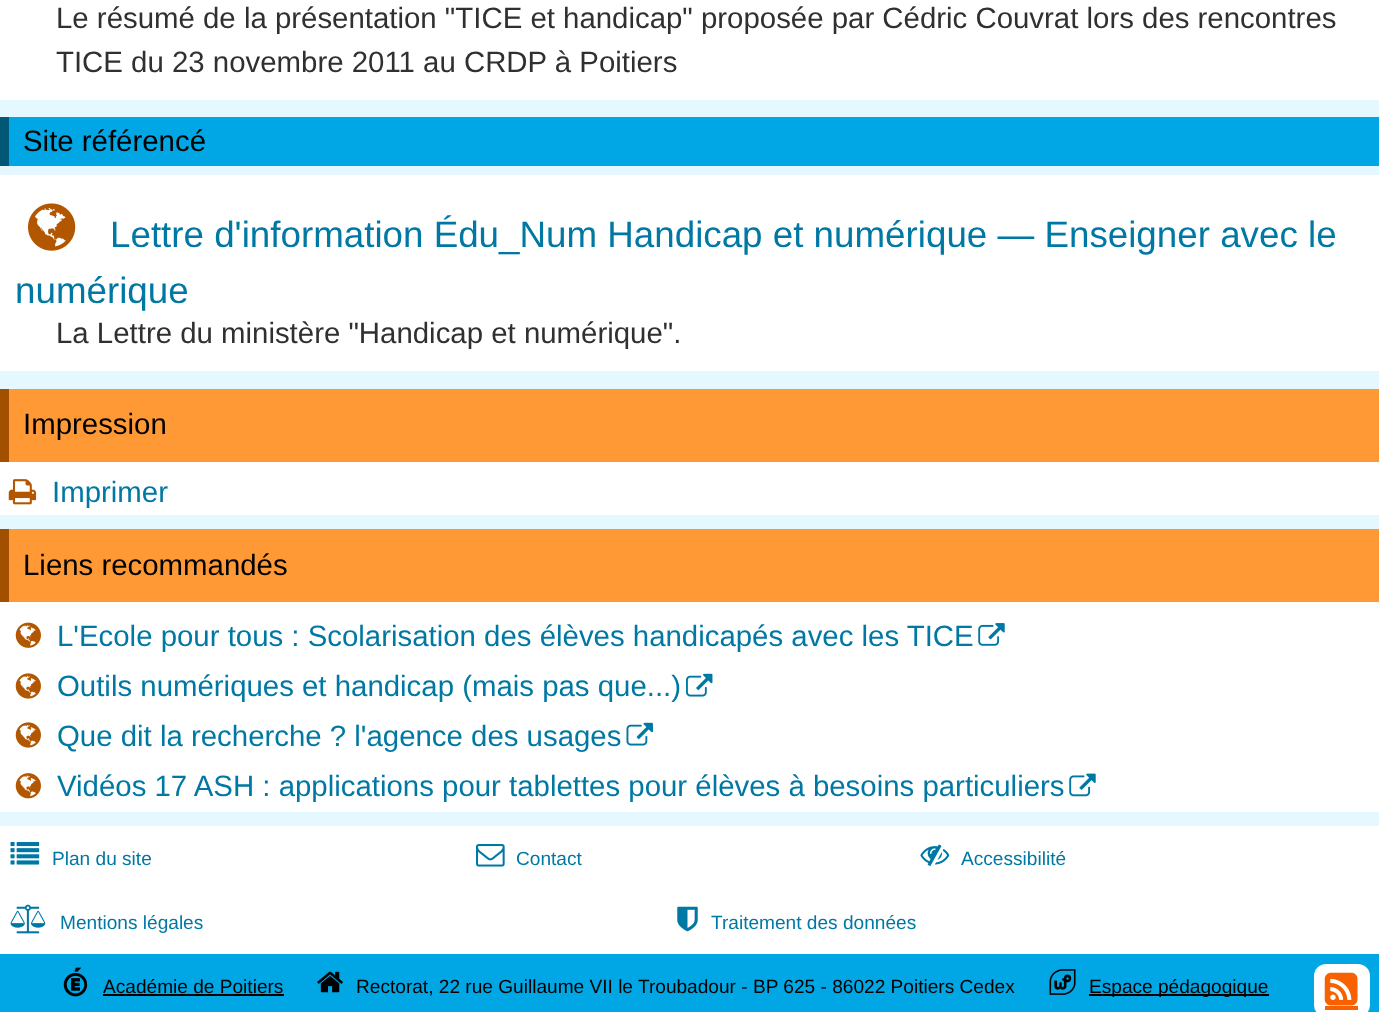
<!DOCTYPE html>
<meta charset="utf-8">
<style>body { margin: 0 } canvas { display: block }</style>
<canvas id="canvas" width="1379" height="1012"></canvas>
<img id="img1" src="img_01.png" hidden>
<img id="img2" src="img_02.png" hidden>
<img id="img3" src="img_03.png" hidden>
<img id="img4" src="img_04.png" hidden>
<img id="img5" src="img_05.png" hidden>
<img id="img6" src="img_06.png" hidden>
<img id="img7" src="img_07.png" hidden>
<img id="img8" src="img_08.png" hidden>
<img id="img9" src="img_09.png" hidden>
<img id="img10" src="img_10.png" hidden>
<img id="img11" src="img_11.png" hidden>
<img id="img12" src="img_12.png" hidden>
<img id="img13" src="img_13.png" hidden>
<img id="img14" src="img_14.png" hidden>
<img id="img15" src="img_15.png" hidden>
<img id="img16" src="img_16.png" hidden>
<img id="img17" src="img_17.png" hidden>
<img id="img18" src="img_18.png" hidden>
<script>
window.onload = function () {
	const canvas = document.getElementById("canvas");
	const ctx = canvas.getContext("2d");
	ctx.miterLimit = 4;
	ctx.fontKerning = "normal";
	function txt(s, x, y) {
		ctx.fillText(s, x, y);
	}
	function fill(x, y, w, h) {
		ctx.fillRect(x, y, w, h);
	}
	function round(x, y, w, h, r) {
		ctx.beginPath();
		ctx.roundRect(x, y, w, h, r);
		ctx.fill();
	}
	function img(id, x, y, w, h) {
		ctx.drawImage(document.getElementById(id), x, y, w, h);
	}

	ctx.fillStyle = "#E6F8FF";
	fill(0, 0, 1379, 1012);
	ctx.fillStyle = "#FFFFFF";
	fill(0, 0, 1379, 100);
	ctx.fillStyle = "#00A7E4";
	fill(9, 117, 1370, 49);
	ctx.fillStyle = "#005776";
	fill(0, 117, 9, 49);
	ctx.fillStyle = "#FFFFFF";
	fill(0, 175, 1379, 196);
	img("img1", 28, 203, 48, 48);
	fill(0, 462, 1379, 53);
	ctx.fillStyle = "#FF9935";
	fill(9, 389, 1370, 73);
	ctx.fillStyle = "#A34F00";
	fill(0, 389, 9, 73);
	img("img2", 8, 479, 29, 26);
	ctx.fillStyle = "#FFFFFF";
	fill(0, 602, 1379, 210);
	ctx.fillStyle = "#FF9935";
	fill(9, 529, 1370, 73);
	ctx.fillStyle = "#A34F00";
	fill(0, 529, 9, 73);
	img("img3", 15, 622, 26, 26);
	img("img4", 978, 623, 27, 23);
	img("img5", 15, 673, 26, 26);
	img("img6", 686, 673, 27, 24);
	img("img5", 15, 722, 26, 26);
	img("img7", 626, 722, 27, 24);
	img("img8", 15, 773, 26, 26);
	img("img9", 1069, 773, 27, 24);
	ctx.fillStyle = "#FFFFFF";
	fill(0, 826, 1379, 128);
	img("img10", 10, 842, 30, 23);
	img("img11", 476, 844, 29, 23);
	img("img12", 920, 844, 30, 22);
	img("img13", 10, 904, 36, 30);
	img("img14", 677, 906, 21, 26);
	ctx.fillStyle = "#00A7E4";
	fill(0, 954, 1379, 58);
	img("img15", 63, 967, 25, 30);
	ctx.fillStyle = "#000000";
	fill(103, 994, 181, 2);
	img("img16", 317, 971, 26, 22);
	img("img17", 1049, 969, 27, 26);
	fill(1089, 994, 180, 2);
	ctx.fillStyle = "#FFFFFF";
	round(1314, 964, 56, 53, 12);
	img("img18", 1324, 972, 34, 34);
	ctx.fillStyle = "#F86000";
	fill(1325, 1006, 33, 4);
	ctx.font = "29.4px Liberation Sans";
	ctx.fillStyle = "#303030";
	txt("Le résumé de la présentation \"TICE et handicap\" proposée par Cédric Couvrat lors des rencontres", 56, 28);
	txt("TICE du 23 novembre 2011 au CRDP à Poitiers", 56, 72);
	ctx.fillStyle = "#000000";
	txt("Site référencé", 23, 151);
	ctx.font = "36.75px Liberation Sans";
	ctx.fillStyle = "#0078A4";
	txt("Lettre d'information Édu_Num Handicap et numérique — Enseigner avec le", 110, 247);
	txt("numérique", 15, 303);
	ctx.font = "29.4px Liberation Sans";
	ctx.fillStyle = "#303030";
	txt("La Lettre du ministère \"Handicap et numérique\".", 56, 343);
	ctx.fillStyle = "#000000";
	txt("Impression", 23, 434);
	ctx.fillStyle = "#0078A4";
	txt("Imprimer", 52, 502);
	ctx.fillStyle = "#000000";
	txt("Liens recommandés", 23, 575);
	ctx.fillStyle = "#0078A4";
	txt("L'Ecole pour tous : Scolarisation des élèves handicapés avec les TICE", 57, 646);
	txt("Outils numériques et handicap (mais pas que...)", 57, 696);
	txt("Que dit la recherche ? l'agence des usages", 57, 746);
	txt("Vidéos 17 ASH : applications pour tablettes pour élèves à besoins particuliers", 57, 796);
	ctx.font = "19.1px Liberation Sans";
	txt("Plan du site", 52, 865);
	txt("Contact", 516, 865);
	txt("Accessibilité", 961, 865);
	txt("Mentions légales", 60, 929);
	txt("Traitement des données", 711, 929);
	ctx.fillStyle = "#000000";
	txt("Académie de Poitiers", 103, 993);
	txt("Rectorat, 22 rue Guillaume VII le Troubadour - BP 625 - 86022 Poitiers Cedex", 356, 993);
	txt("Espace pédagogique", 1089, 993);
};
</script>
